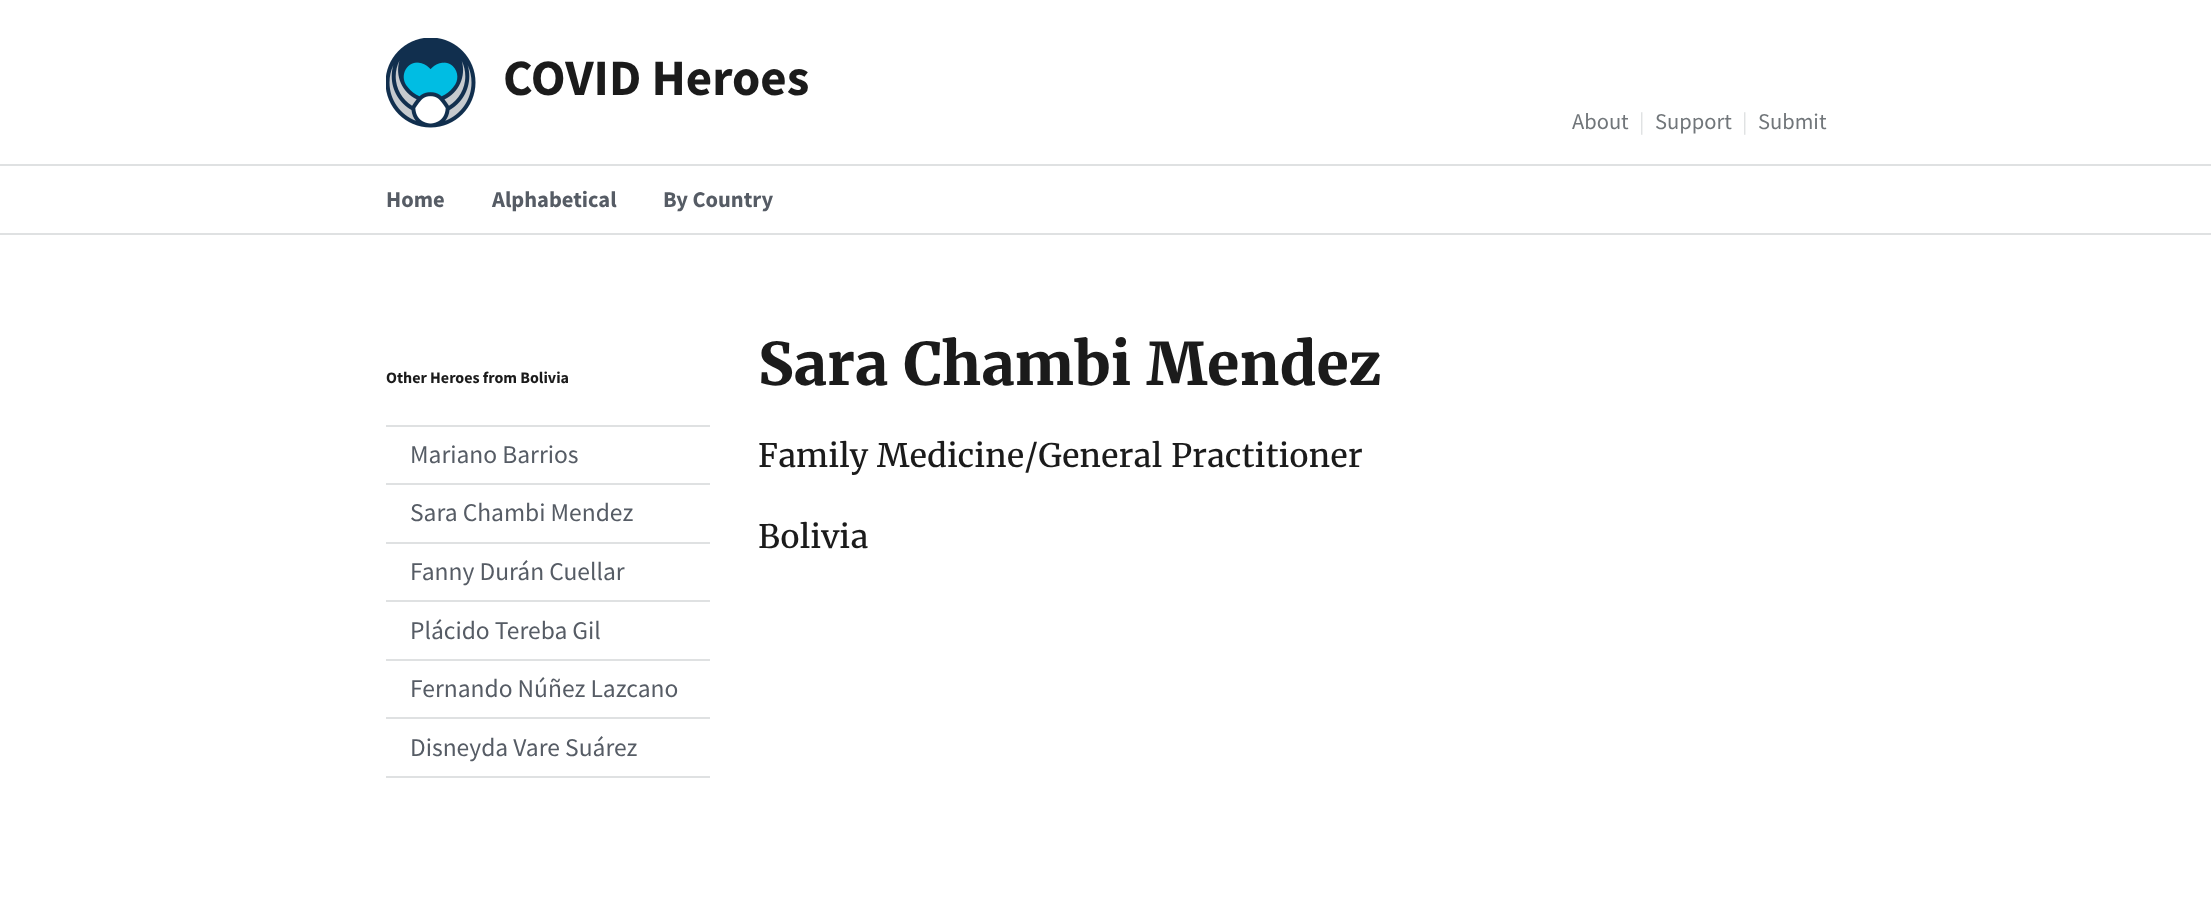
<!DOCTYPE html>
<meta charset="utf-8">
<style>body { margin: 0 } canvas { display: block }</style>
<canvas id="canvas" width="2211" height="917"></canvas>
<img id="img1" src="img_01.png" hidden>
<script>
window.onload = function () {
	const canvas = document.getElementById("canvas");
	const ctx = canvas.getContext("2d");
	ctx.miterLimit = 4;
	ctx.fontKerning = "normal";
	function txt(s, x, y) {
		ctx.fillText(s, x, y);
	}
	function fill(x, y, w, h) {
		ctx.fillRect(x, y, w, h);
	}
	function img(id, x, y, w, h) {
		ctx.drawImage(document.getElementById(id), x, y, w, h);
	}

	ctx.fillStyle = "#FFFFFF";
	fill(0, 0, 2211, 917);
	img("img1", 386, 38, 90, 90);
	ctx.fillStyle = "#DFE1E2";
	fill(0, 164, 2211, 2);
	fill(0, 233, 2211, 2);
	fill(386, 776, 324, 2);
	fill(386, 425, 324, 2);
	fill(386, 483, 324, 2);
	fill(386, 542, 324, 2);
	fill(386, 600, 324, 2);
	fill(386, 659, 324, 2);
	fill(386, 717, 324, 2);
	ctx.font = "bold 51px Source Sans Pro";
	ctx.fillStyle = "#1B1B1B";
	txt("COVID Heroes", 503, 95);
	ctx.font = "22.5px Source Sans Pro";
	ctx.fillStyle = "#71767A";
	txt("About", 1572, 129);
	ctx.fillStyle = "#DFE1E2";
	txt("|", 1639, 129);
	ctx.fillStyle = "#71767A";
	txt("Support", 1655, 129);
	ctx.fillStyle = "#DFE1E2";
	txt("|", 1742, 129);
	ctx.fillStyle = "#71767A";
	txt("Submit", 1758, 129);
	ctx.font = "bold 22.5px Source Sans Pro";
	ctx.fillStyle = "#565C65";
	txt("Home", 386, 207);
	txt("Alphabetical", 492, 207);
	txt("By Country", 663, 207);
	ctx.font = "bold 16px Source Sans Pro";
	ctx.fillStyle = "#1B1B1B";
	txt("Other Heroes from Bolivia", 386, 383);
	ctx.font = "25.5px Source Sans Pro";
	ctx.fillStyle = "#565C65";
	txt("Mariano Barrios", 410, 463);
	txt("Sara Chambi Mendez", 410, 521);
	txt("Fanny Durán Cuellar", 410, 580);
	txt("Plácido Tereba Gil", 410, 639);
	txt("Fernando Núñez Lazcano", 410, 697);
	txt("Disneyda Vare Suárez", 410, 756);
	ctx.font = "bold 58.5px Merriweather";
	ctx.fillStyle = "#1B1B1B";
	txt("Sara Chambi Mendez", 758, 385);
	ctx.font = "32.2px Merriweather";
	txt("Family Medicine/General Practitioner", 758, 467);
	txt("Bolivia", 758, 548);
};
</script>
